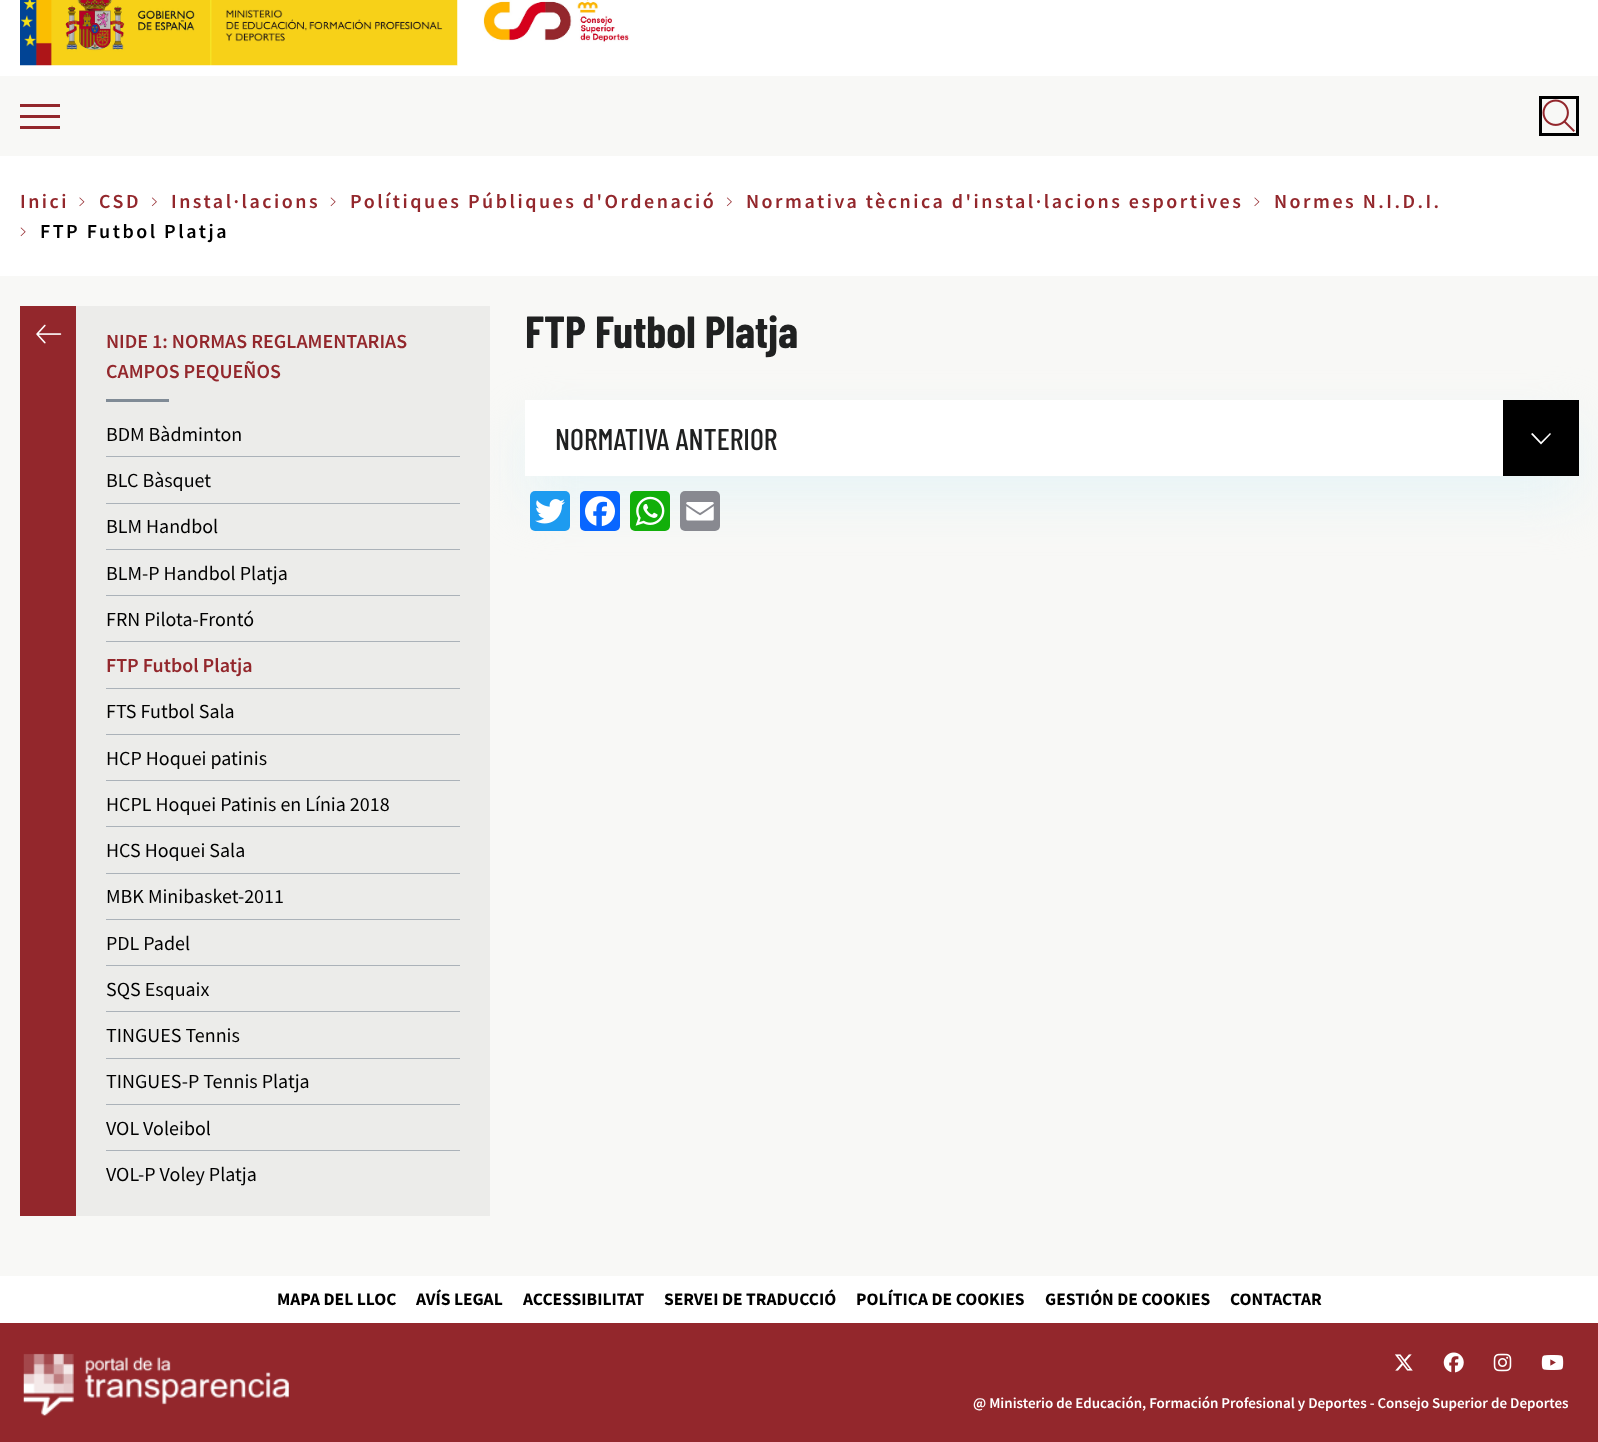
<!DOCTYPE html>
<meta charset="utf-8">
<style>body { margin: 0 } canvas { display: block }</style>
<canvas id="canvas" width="1598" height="1442"></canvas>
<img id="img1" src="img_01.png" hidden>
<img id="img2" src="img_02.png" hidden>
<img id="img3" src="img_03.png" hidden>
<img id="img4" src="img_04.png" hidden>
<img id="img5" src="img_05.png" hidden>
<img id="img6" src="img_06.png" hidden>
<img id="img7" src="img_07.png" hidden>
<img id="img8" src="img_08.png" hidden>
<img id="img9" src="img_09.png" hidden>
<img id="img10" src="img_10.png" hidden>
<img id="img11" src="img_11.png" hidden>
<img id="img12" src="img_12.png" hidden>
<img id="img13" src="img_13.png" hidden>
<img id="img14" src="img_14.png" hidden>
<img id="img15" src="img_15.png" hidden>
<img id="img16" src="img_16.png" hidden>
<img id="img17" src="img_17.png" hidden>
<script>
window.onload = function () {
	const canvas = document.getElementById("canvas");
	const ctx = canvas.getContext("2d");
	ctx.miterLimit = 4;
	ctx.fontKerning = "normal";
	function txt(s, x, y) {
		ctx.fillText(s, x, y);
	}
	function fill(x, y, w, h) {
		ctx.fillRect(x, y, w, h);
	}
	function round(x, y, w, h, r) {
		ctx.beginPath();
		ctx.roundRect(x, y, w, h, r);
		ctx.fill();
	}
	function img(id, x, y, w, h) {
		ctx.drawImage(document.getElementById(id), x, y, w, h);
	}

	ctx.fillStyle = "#F8F8F6";
	fill(0, 0, 1598, 1442);
	ctx.fillStyle = "#FFFFFF";
	fill(0, 0, 1598, 76);
	img("img1", 20, 0, 190, 66);
	img("img2", 210, 0, 248, 66);
	img("img3", 457, 0, 173, 65);
	ctx.fillStyle = "#93272C";
	fill(20, 115, 40, 3);
	fill(20, 104, 40, 3);
	fill(20, 126, 40, 3);
	ctx.strokeStyle = "#000000";
	ctx.lineWidth = 3;
	ctx.strokeRect(1540.5, 97.5, 37, 37);
	img("img4", 1542, 99, 33, 33);
	ctx.fillStyle = "#FFFFFF";
	fill(0, 156, 1598, 120);
	img("img5", 79, 197, 6, 10);
	img("img6", 151, 197, 6, 10);
	img("img7", 330, 197, 6, 10);
	img("img6", 726, 197, 6, 10);
	img("img5", 1254, 197, 6, 10);
	img("img7", 20, 227, 6, 10);
	ctx.fillStyle = "#93272C";
	fill(20, 306, 56, 910);
	img("img8", 36, 324, 26, 20);
	ctx.fillStyle = "rgba(231, 244, 246, 0.9)";
	ctx.filter = "blur(25px)";
	ctx.beginPath();
	ctx.rect(525, 425, 1054, 76);
	ctx.fill();
	ctx.filter = "none";
	ctx.fillStyle = "#ECECEA";
	fill(76, 306, 414, 910);
	ctx.fillStyle = "#808B96";
	fill(106, 399, 63, 3);
	ctx.fillStyle = "#ABB2B9";
	fill(106, 456, 354, 1);
	fill(106, 503, 354, 1);
	fill(106, 549, 354, 1);
	fill(106, 595, 354, 1);
	fill(106, 641, 354, 1);
	fill(106, 688, 354, 1);
	fill(106, 734, 354, 1);
	fill(106, 780, 354, 1);
	fill(106, 826, 354, 1);
	fill(106, 873, 354, 1);
	fill(106, 919, 354, 1);
	fill(106, 965, 354, 1);
	fill(106, 1011, 354, 1);
	fill(106, 1058, 354, 1);
	fill(106, 1104, 354, 1);
	fill(106, 1150, 354, 1);
	ctx.fillStyle = "#FFFFFF";
	fill(525, 400, 978, 76);
	ctx.fillStyle = "#000000";
	fill(1503, 400, 76, 76);
	ctx.fillStyle = "#FFFFFF";
	ctx.beginPath();
	ctx.moveTo(1541, 442);
	ctx.lineTo(1550, 433);
	ctx.lineTo(1551, 434);
	ctx.lineTo(1541, 444.5);
	ctx.lineTo(1531, 434);
	ctx.lineTo(1532.5, 433);
	ctx.closePath();
	ctx.fill();
	ctx.fillStyle = "#1D9BF0";
	round(530, 491, 40, 40, 5);
	img("img9", 535, 499, 30, 25);
	ctx.fillStyle = "#0866FF";
	round(580, 491, 40, 40, 5);
	img("img10", 585, 496, 30, 31);
	ctx.fillStyle = "#12AF0A";
	round(630, 491, 40, 40, 5);
	img("img11", 635, 496, 30, 30);
	ctx.fillStyle = "#888990";
	round(680, 491, 40, 40, 5);
	img("img12", 686, 502, 28, 19);
	ctx.fillStyle = "#FFFFFF";
	fill(0, 1276, 1598, 47);
	ctx.fillStyle = "#93272C";
	fill(0, 1323, 1598, 119);
	img("img13", 23, 1353, 266, 63);
	img("img14", 1395, 1354, 18, 17);
	img("img15", 1443, 1352, 21, 21);
	img("img16", 1493, 1353, 19, 19);
	img("img17", 1541, 1355, 23, 15);
	ctx.letterSpacing = "2.5px";
	ctx.font = "600 20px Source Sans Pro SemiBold";
	txt("Inici", 20, 208);
	txt("CSD", 99, 208);
	txt("Instal·lacions", 171, 208);
	txt("Polítiques Públiques d'Ordenació", 350, 208);
	txt("Normativa tècnica d'instal·lacions esportives", 746, 208);
	txt("Normes N.I.D.I.", 1274, 208);
	ctx.fillStyle = "#000000";
	txt("FTP Futbol Platja", 40, 238);
	ctx.letterSpacing = "0px";
	ctx.fillStyle = "#93272C";
	txt("NIDE 1: NORMAS REGLAMENTARIAS", 106, 348);
	txt("CAMPOS PEQUEÑOS", 106, 378);
	ctx.font = "20px Source Sans Pro";
	ctx.fillStyle = "#000000";
	txt("BDM Bàdminton", 106, 441);
	txt("BLC Bàsquet", 106, 487);
	txt("BLM Handbol", 106, 533);
	txt("BLM-P Handbol Platja", 106, 580);
	txt("FRN Pilota-Frontó", 106, 626);
	ctx.font = "600 20px Source Sans Pro SemiBold";
	ctx.fillStyle = "#93272C";
	txt("FTP Futbol Platja", 106, 672);
	ctx.font = "20px Source Sans Pro";
	ctx.fillStyle = "#000000";
	txt("FTS Futbol Sala", 106, 718);
	txt("HCP Hoquei patinis", 106, 765);
	txt("HCPL Hoquei Patinis en Línia 2018", 106, 811);
	txt("HCS Hoquei Sala", 106, 857);
	txt("MBK Minibasket-2011", 106, 903);
	txt("PDL Padel", 106, 950);
	txt("SQS Esquaix", 106, 996);
	txt("TINGUES Tennis", 106, 1042);
	txt("TINGUES-P Tennis Platja", 106, 1088);
	txt("VOL Voleibol", 106, 1135);
	txt("VOL-P Voley Platja", 106, 1181);
	ctx.font = "bold 45px Barlow Condensed";
	ctx.fillStyle = "#202121";
	txt("FTP Futbol Platja", 525, 348);
	ctx.font = "500 30px Barlow Condensed";
	txt("NORMATIVA ANTERIOR", 555, 450);
	ctx.font = "bold 17.5px Source Sans Pro";
	ctx.fillStyle = "#000000";
	txt("MAPA DEL LLOC", 277, 1305);
	txt("AVÍS LEGAL", 416, 1305);
	txt("ACCESSIBILITAT", 523, 1305);
	txt("SERVEI DE TRADUCCIÓ", 664, 1305);
	txt("POLÍTICA DE COOKIES", 856, 1305);
	txt("GESTIÓN DE COOKIES", 1045, 1305);
	txt("CONTACTAR", 1230, 1305);
	ctx.font = "600 15px Source Sans Pro SemiBold";
	ctx.fillStyle = "#FFFFFF";
	txt("@ Ministerio de Educación, Formación Profesional y Deportes - Consejo Superior de Deportes", 973, 1408);
};
</script>
